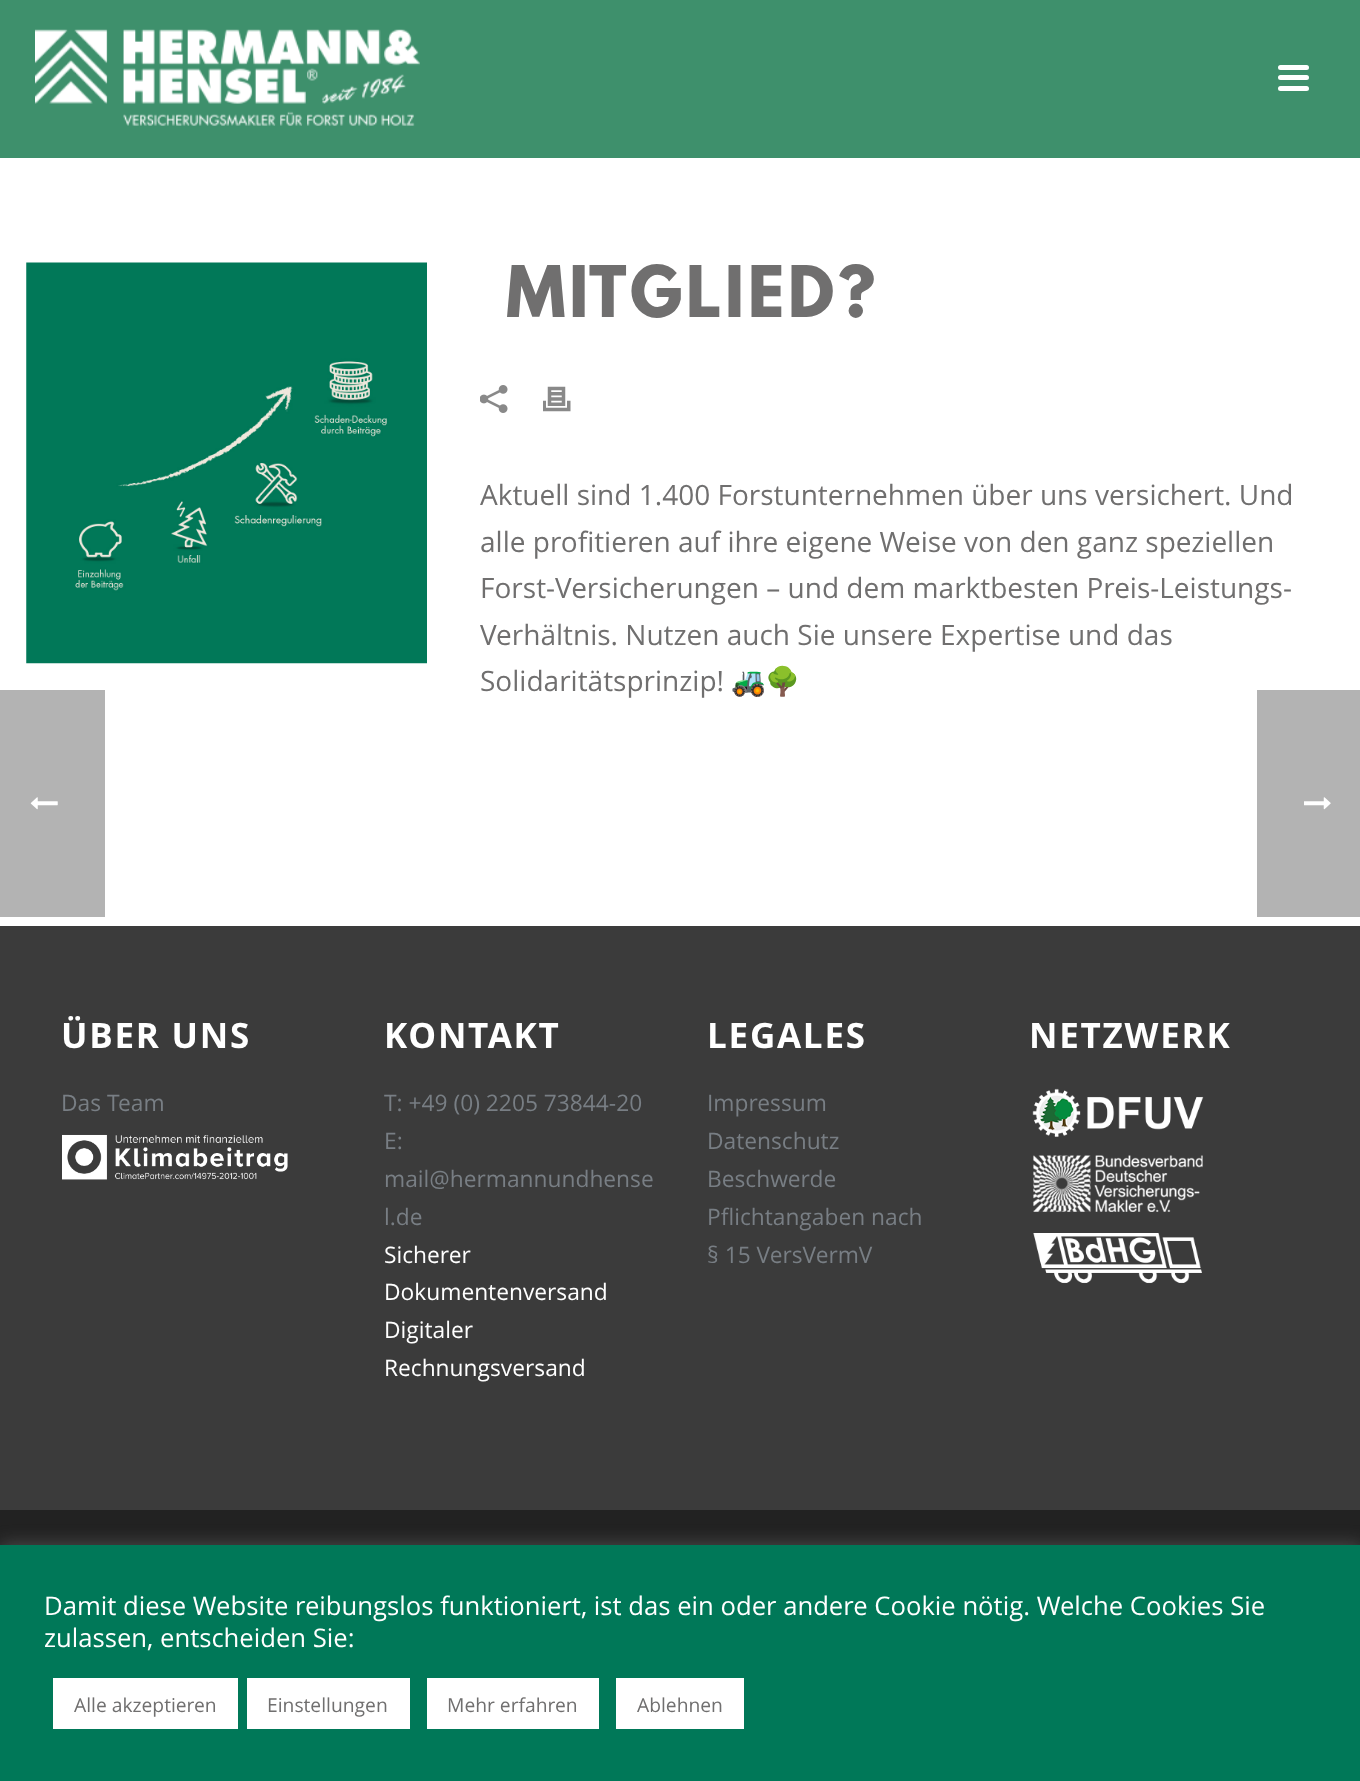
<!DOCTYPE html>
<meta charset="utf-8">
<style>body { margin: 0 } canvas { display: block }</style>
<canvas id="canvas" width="1360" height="1781"></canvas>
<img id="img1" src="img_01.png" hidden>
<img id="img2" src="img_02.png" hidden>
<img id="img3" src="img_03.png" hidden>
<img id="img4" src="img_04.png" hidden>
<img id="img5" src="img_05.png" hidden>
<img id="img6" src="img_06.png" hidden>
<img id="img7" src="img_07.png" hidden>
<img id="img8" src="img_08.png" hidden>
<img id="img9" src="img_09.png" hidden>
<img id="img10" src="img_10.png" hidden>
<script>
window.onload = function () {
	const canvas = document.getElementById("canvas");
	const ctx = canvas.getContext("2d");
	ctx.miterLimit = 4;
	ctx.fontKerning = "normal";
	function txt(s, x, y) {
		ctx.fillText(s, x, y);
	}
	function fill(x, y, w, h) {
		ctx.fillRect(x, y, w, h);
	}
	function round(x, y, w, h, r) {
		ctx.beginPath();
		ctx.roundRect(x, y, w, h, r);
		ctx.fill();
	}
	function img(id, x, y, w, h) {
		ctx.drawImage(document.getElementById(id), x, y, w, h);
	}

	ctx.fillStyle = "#FFFFFF";
	fill(0, 0, 1360, 1781);
	ctx.fillStyle = "#B3B3B3";
	fill(0, 690, 105, 227);
	img("img1", 30, 797, 28, 13);
	ctx.fillStyle = "#3E906C";
	fill(0, 0, 1360, 158);
	img("img2", 35, 29, 385, 97);
	ctx.fillStyle = "#FFFFFF";
	round(1278, 65, 31, 5, 2.5);
	round(1278, 75, 31, 5, 2.5);
	round(1278, 86, 31, 5, 2.5);
	img("img3", 26, 262, 401, 402);
	img("img4", 480, 385, 28, 28);
	img("img5", 543, 386, 28, 26);
	ctx.fillStyle = "#3B3B3B";
	fill(0, 926, 1360, 584);
	img("img6", 62, 1134, 226, 46);
	img("img7", 1032, 1088, 172, 49);
	img("img8", 1033, 1155, 170, 57);
	img("img9", 1033, 1233, 169, 51);
	ctx.fillStyle = "#222222";
	fill(0, 1510, 1360, 35);
	ctx.fillStyle = "#B3B3B3";
	fill(1257, 690, 103, 227);
	img("img10", 1304, 797, 27, 13);
	ctx.fillStyle = "rgba(172, 171, 171, 0.3)";
	ctx.filter = "blur(9px)";
	ctx.beginPath();
	ctx.rect(0, 1544, 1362, 236);
	ctx.fill();
	ctx.filter = "none";
	ctx.fillStyle = "#007858";
	fill(0, 1545, 1360, 236);
	ctx.fillStyle = "#FFFFFF";
	fill(53, 1678, 185, 51);
	fill(247, 1678, 163, 51);
	fill(427, 1678, 172, 51);
	fill(616, 1678, 128, 51);
	ctx.letterSpacing = "3.5px";
	ctx.font = "bold 63px League Spartan";
	ctx.fillStyle = "#706F6F";
	txt("MITGLIED?", 506, 317);
	ctx.letterSpacing = "0px";
	ctx.font = "28px Open Sans";
	txt("Aktuell sind 1.400 Forstunternehmen über uns versichert. Und", 480, 505);
	txt("alle profitieren auf ihre eigene Weise von den ganz speziellen", 480, 552);
	txt("Forst-Versicherungen – und dem marktbesten Preis-Leistungs-", 480, 598);
	txt("Verhältnis. Nutzen auch Sie unsere Expertise und das", 480, 645);
	txt("Solidaritätsprinzip!", 480, 691);
	ctx.font = "28px Noto Color Emoji";
	txt("🚜🌳", 731, 691);
	ctx.letterSpacing = "1.75px";
	ctx.font = "bold 35px Open Sans";
	ctx.fillStyle = "#FFFFFF";
	txt("ÜBER UNS", 61, 1048);
	ctx.letterSpacing = "0px";
	ctx.font = "22.75px Open Sans";
	ctx.fillStyle = "#787E84";
	txt("Das Team", 61, 1111);
	ctx.letterSpacing = "1.75px";
	ctx.font = "bold 35px Open Sans";
	ctx.fillStyle = "#FFFFFF";
	txt("KONTAKT", 384, 1048);
	ctx.letterSpacing = "0px";
	ctx.font = "22.75px Open Sans";
	ctx.fillStyle = "#787E84";
	txt("T: +49 (0) 2205 73844-20", 384, 1111);
	txt("E:", 384, 1149);
	txt("mail@hermannundhense", 384, 1187);
	txt("l.de", 384, 1225);
	ctx.fillStyle = "#FFFFFF";
	txt("Sicherer", 384, 1263);
	txt("Dokumentenversand", 384, 1300);
	txt("Digitaler", 384, 1338);
	txt("Rechnungsversand", 384, 1376);
	ctx.letterSpacing = "1.75px";
	ctx.font = "bold 35px Open Sans";
	txt("LEGALES", 707, 1048);
	ctx.letterSpacing = "0px";
	ctx.font = "22.75px Open Sans";
	ctx.fillStyle = "#787E84";
	txt("Impressum", 707, 1111);
	txt("Datenschutz", 707, 1149);
	txt("Beschwerde", 707, 1187);
	txt("Pflichtangaben nach", 707, 1225);
	txt("§ 15 VersVermV", 707, 1263);
	ctx.letterSpacing = "1.75px";
	ctx.font = "bold 35px Open Sans";
	ctx.fillStyle = "#FFFFFF";
	txt("NETZWERK", 1029, 1048);
	ctx.letterSpacing = "0px";
	ctx.font = "25.65px Open Sans";
	txt("Damit diese Website reibungslos funktioniert, ist das ein oder andere Cookie nötig. Welche Cookies Sie", 44, 1615);
	txt("zulassen, entscheiden Sie:", 44, 1647);
	ctx.font = "19.25px Open Sans";
	ctx.fillStyle = "#706F6F";
	txt("Alle akzeptieren", 74, 1712);
	txt("Einstellungen", 267, 1712);
	txt("Mehr erfahren", 447, 1712);
	txt("Ablehnen", 637, 1712);
};
</script>
